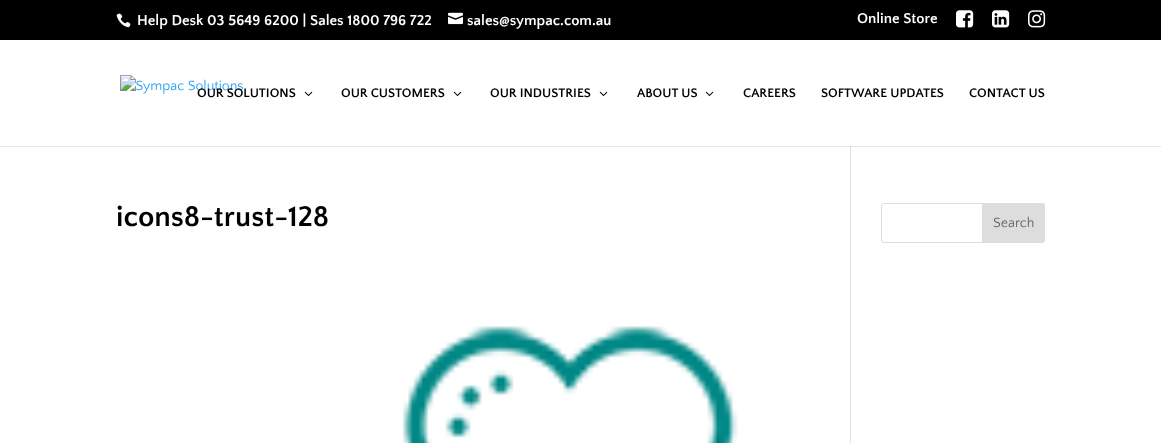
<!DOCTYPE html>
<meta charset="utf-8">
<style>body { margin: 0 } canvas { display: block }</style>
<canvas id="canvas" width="1161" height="443"></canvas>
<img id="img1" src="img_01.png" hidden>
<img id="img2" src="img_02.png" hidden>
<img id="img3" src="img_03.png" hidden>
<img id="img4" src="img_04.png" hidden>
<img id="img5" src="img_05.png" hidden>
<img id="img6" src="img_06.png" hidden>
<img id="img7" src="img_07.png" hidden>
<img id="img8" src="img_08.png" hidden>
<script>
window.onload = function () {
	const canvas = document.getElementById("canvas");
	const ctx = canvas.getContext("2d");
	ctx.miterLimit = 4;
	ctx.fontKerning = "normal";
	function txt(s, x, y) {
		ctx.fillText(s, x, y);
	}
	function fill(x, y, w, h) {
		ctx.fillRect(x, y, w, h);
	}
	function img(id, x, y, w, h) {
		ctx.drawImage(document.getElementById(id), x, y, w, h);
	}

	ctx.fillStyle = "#FFFFFF";
	fill(0, 0, 1161, 443);
	ctx.fillStyle = "#000000";
	fill(0, 0, 1161, 40);
	img("img1", 116, 13, 15, 15);
	img("img2", 448, 12, 15, 13);
	img("img3", 956, 10, 18, 18);
	img("img4", 992, 10, 18, 18);
	img("img5", 1028, 10, 18, 18);
	ctx.fillStyle = "#E6E6E6";
	fill(0, 146, 1161, 1);
	ctx.fillStyle = "#E2E2E2";
	fill(850, 145, 1, 298);
	ctx.fillStyle = "#FFFFFF";
	fill(850, 145, 1, 1);
	img("img6", 120, 75, 123, 19);
	img("img7", 304, 91, 9, 5);
	img("img7", 453, 91, 9, 5);
	img("img7", 599, 91, 9, 5);
	img("img7", 705, 91, 9, 5);
	ctx.fillStyle = "#CBCBCB";
	fill(850, 146, 1, 1);
	img("img8", 402, 326, 336, 117);
	ctx.beginPath();
	ctx.roundRect(881.5, 203.5, 163, 39, 2.5);
	ctx.strokeStyle = "#DDDDDD";
	ctx.stroke();
	ctx.fillStyle = "#DDDDDD";
	ctx.beginPath();
	ctx.roundRect(982.5, 203.5, 62, 39, [0, 2.5, 2.5, 0]);
	ctx.fill();
	ctx.stroke();
	ctx.font = "bold 15px Quattrocento Sans";
	ctx.fillStyle = "#FFFFFF";
	txt("Help Desk 03 5649 6200 | Sales 1800 796 722", 137, 25);
	txt("sales@sympac.com.au", 467, 25);
	txt("Online Store", 857, 23);
	ctx.font = "bold 13px Quattrocento Sans";
	ctx.fillStyle = "#000000";
	txt("OUR SOLUTIONS", 197, 97);
	txt("OUR CUSTOMERS", 341, 97);
	txt("OUR INDUSTRIES", 490, 97);
	txt("ABOUT US", 637, 97);
	txt("CAREERS", 743, 97);
	txt("SOFTWARE UPDATES", 821, 97);
	txt("CONTACT US", 969, 97);
	ctx.font = "bold 30px Quattrocento Sans";
	txt("icons8-trust-128", 116, 226);
	ctx.font = "14px Quattrocento Sans";
	ctx.fillStyle = "#666666";
	txt("Search", 993, 227);
};
</script>
